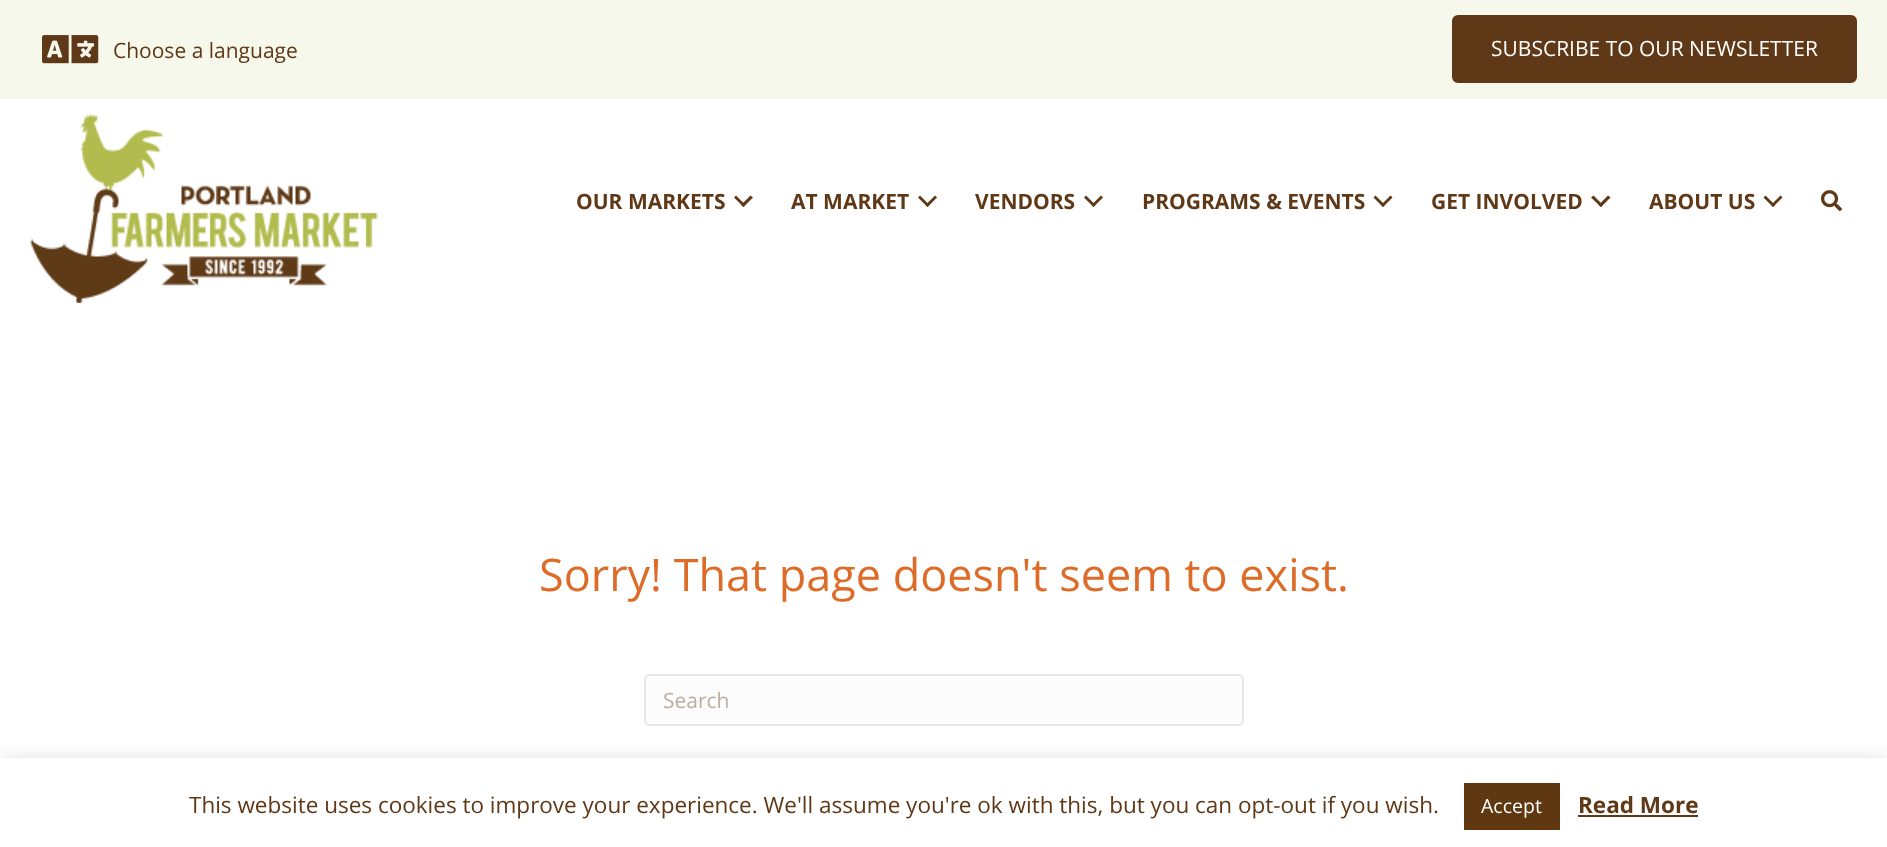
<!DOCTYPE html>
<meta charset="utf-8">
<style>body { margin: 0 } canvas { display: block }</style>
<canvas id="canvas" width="1887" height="847"></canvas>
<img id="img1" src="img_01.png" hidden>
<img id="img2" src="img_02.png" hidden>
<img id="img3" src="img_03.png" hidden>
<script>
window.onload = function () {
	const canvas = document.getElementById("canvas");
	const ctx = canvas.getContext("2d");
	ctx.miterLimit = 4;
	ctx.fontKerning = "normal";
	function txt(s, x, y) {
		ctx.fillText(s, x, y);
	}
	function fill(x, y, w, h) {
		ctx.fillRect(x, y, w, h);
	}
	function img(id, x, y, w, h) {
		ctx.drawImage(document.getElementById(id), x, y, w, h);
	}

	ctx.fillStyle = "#FFFFFF";
	fill(0, 0, 1887, 847);
	ctx.fillStyle = "#F7F8EC";
	fill(0, 0, 1887, 99);
	img("img1", 42, 35, 57, 29);
	ctx.fillStyle = "#5F3917";
	ctx.beginPath();
	ctx.roundRect(1453.5, 16.5, 402, 65, 4.5);
	ctx.fill();
	ctx.strokeStyle = "#5F3917";
	ctx.lineWidth = 3;
	ctx.stroke();
	img("img2", 30, 114, 348, 189);
	ctx.beginPath();
	ctx.moveTo(750.5, 195.5);
	ctx.lineTo(753, 197.5);
	ctx.lineTo(743.5, 207);
	ctx.lineTo(741, 205);
	ctx.closePath();
	ctx.fill();
	ctx.beginPath();
	ctx.moveTo(736, 195.5);
	ctx.lineTo(745.5, 205);
	ctx.lineTo(743.5, 207);
	ctx.lineTo(734, 197.5);
	ctx.closePath();
	ctx.fill();
	ctx.beginPath();
	ctx.moveTo(935, 195.5);
	ctx.lineTo(937, 197.5);
	ctx.lineTo(927.5, 207);
	ctx.lineTo(925.5, 205);
	ctx.closePath();
	ctx.fill();
	ctx.beginPath();
	ctx.moveTo(920, 195.5);
	ctx.lineTo(929.5, 205);
	ctx.lineTo(927.5, 207);
	ctx.lineTo(918, 197.5);
	ctx.closePath();
	ctx.fill();
	ctx.beginPath();
	ctx.moveTo(1101, 195.5);
	ctx.lineTo(1103, 197.5);
	ctx.lineTo(1093.5, 207);
	ctx.lineTo(1091.5, 205);
	ctx.closePath();
	ctx.fill();
	ctx.beginPath();
	ctx.moveTo(1086, 195.5);
	ctx.lineTo(1095.5, 205);
	ctx.lineTo(1093.5, 207);
	ctx.lineTo(1084, 197.5);
	ctx.closePath();
	ctx.fill();
	ctx.beginPath();
	ctx.moveTo(1390.5, 195.5);
	ctx.lineTo(1392.5, 197.5);
	ctx.lineTo(1383, 207);
	ctx.lineTo(1381, 205);
	ctx.closePath();
	ctx.fill();
	ctx.beginPath();
	ctx.moveTo(1375.5, 195.5);
	ctx.lineTo(1385, 205);
	ctx.lineTo(1383, 207);
	ctx.lineTo(1373.5, 197.5);
	ctx.closePath();
	ctx.fill();
	ctx.beginPath();
	ctx.moveTo(1608, 195.5);
	ctx.lineTo(1610.5, 197.5);
	ctx.lineTo(1601, 207);
	ctx.lineTo(1598.5, 205);
	ctx.closePath();
	ctx.fill();
	ctx.beginPath();
	ctx.moveTo(1593.5, 195.5);
	ctx.lineTo(1603, 205);
	ctx.lineTo(1601, 207);
	ctx.lineTo(1591, 197.5);
	ctx.closePath();
	ctx.fill();
	ctx.beginPath();
	ctx.moveTo(1780.5, 195.5);
	ctx.lineTo(1782.5, 197.5);
	ctx.lineTo(1773, 207);
	ctx.lineTo(1771, 205);
	ctx.closePath();
	ctx.fill();
	ctx.beginPath();
	ctx.moveTo(1765.5, 195.5);
	ctx.lineTo(1775, 205);
	ctx.lineTo(1773, 207);
	ctx.lineTo(1763.5, 197.5);
	ctx.closePath();
	ctx.fill();
	img("img3", 1821, 190, 21, 22);
	ctx.fillStyle = "#FCFCFC";
	ctx.beginPath();
	ctx.roundRect(645, 675, 598, 50, 5);
	ctx.fill();
	ctx.strokeStyle = "#E6E6E6";
	ctx.lineWidth = 2;
	ctx.stroke();
	ctx.save();
	ctx.beginPath();
	ctx.rect(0, 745, 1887, 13);
	ctx.clip();
	ctx.fillStyle = "rgba(172, 171, 171, 0.3)";
	ctx.filter = "blur(7.5px)";
	ctx.beginPath();
	ctx.rect(0, 756, 1887, 90);
	ctx.fill();
	ctx.filter = "none";
	ctx.restore();
	ctx.fillStyle = "#5F3812";
	fill(1464, 783, 96, 47);
	ctx.fillStyle = "#5F3917";
	fill(1578, 815, 120, 2);
	ctx.font = "21px Open Sans";
	txt("Choose a language", 113, 58);
	ctx.fillStyle = "#FFFFFF";
	txt("SUBSCRIBE TO OUR NEWSLETTER", 1491, 56);
	ctx.font = "bold 21px Open Sans";
	ctx.fillStyle = "#5F3917";
	txt("OUR MARKETS", 576, 209);
	txt("AT MARKET", 791, 209);
	txt("VENDORS", 975, 209);
	txt("PROGRAMS & EVENTS", 1142, 209);
	txt("GET INVOLVED", 1431, 209);
	txt("ABOUT US", 1649, 209);
	ctx.font = "45px Open Sans";
	ctx.fillStyle = "#DE6C29";
	txt("Sorry! That page doesn't seem to exist.", 539, 591);
	ctx.font = "21px Open Sans";
	ctx.fillStyle = "#BDAEA0";
	txt("Search", 663, 708);
	ctx.font = "22.5px Open Sans";
	ctx.fillStyle = "#5F3917";
	txt("This website uses cookies to improve your experience. We'll assume you're ok with this, but you can opt-out if you wish.", 189, 813);
	ctx.font = "19.5px Open Sans";
	ctx.fillStyle = "#FFFFFF";
	txt("Accept", 1481, 813);
	ctx.font = "bold 22.5px Open Sans";
	ctx.fillStyle = "#5F3917";
	txt("Read More", 1578, 813);
};
</script>
